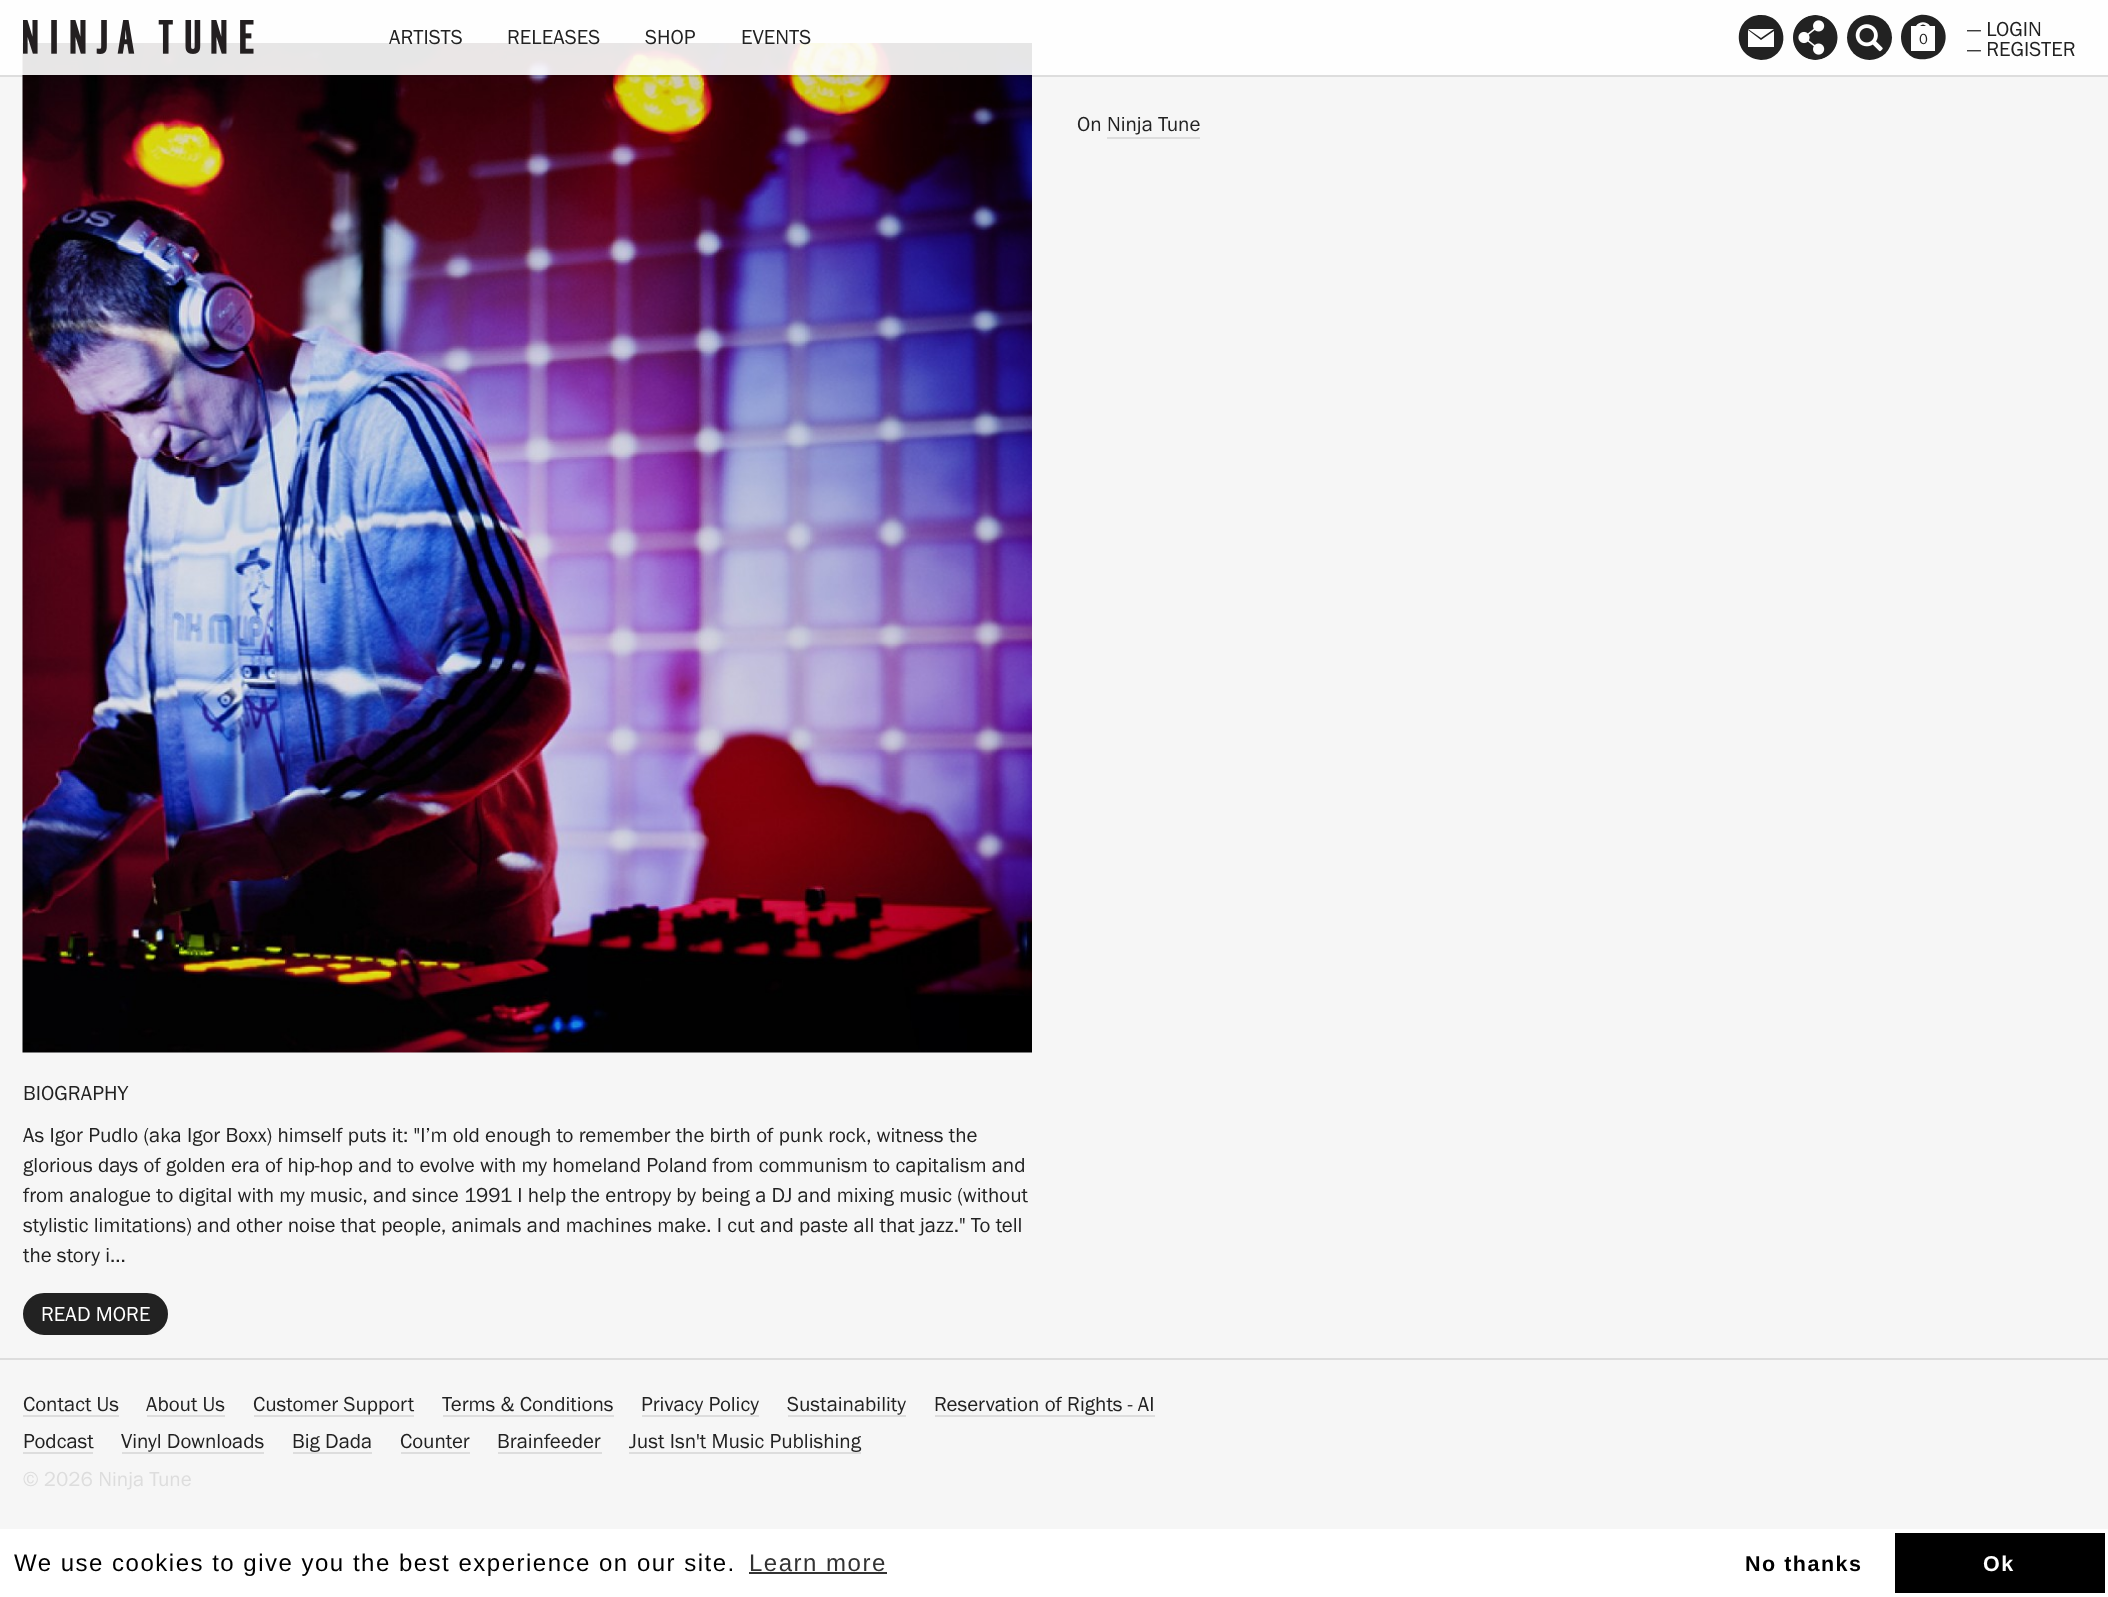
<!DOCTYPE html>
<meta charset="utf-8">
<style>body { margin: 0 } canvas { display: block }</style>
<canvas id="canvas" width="2108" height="1597"></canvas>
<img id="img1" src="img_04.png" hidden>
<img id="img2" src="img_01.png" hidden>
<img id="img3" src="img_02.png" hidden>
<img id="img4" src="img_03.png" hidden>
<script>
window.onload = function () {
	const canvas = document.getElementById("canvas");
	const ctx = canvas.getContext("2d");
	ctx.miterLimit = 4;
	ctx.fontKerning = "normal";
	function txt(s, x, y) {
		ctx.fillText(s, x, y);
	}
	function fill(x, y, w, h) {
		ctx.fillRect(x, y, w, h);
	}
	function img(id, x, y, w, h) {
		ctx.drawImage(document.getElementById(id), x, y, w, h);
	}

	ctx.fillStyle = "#F6F6F6";
	fill(0, 0, 2108, 1597);
	img("img1", 22, 43, 1010, 1010);
	ctx.fillStyle = "rgba(0, 0, 0, 0.1)";
	fill(0, 75, 2108, 2);
	ctx.fillStyle = "rgba(255, 255, 255, 0.9)";
	fill(0, 0, 2108, 75);
	img("img2", 23, 20, 231, 34);
	ctx.fillStyle = "#222222";
	ctx.beginPath();
	ctx.moveTo(1761, 15);
	ctx.bezierCurveTo(1733, 15, 1730, 57, 1761, 60);
	ctx.bezierCurveTo(1765, 60, 1768, 59, 1771, 58);
	ctx.bezierCurveTo(1792, 48, 1785, 15, 1761, 15);
	ctx.closePath();
	ctx.moveTo(1774, 29);
	ctx.lineTo(1748, 29);
	ctx.lineTo(1761, 38);
	ctx.closePath();
	ctx.moveTo(1774, 47);
	ctx.lineTo(1774, 31);
	ctx.lineTo(1761, 40);
	ctx.lineTo(1748, 30);
	ctx.lineTo(1748, 47);
	ctx.closePath();
	ctx.fill("evenodd");
	img("img3", 1793, 15, 45, 45);
	ctx.beginPath();
	ctx.arc(1869.5, 37.5, 22.5, 0, Math.PI * 2);
	ctx.fill();
	img("img4", 1855, 24, 28, 28);
	ctx.beginPath();
	ctx.moveTo(1914, 58);
	ctx.bezierCurveTo(1908, 55, 1904, 50, 1902, 44);
	ctx.bezierCurveTo(1900, 37, 1901, 30, 1905, 24);
	ctx.bezierCurveTo(1909, 20, 1914, 16, 1920, 15);
	ctx.bezierCurveTo(1941, 13, 1953, 35, 1941, 51);
	ctx.bezierCurveTo(1935, 59, 1923, 61, 1914, 58);
	ctx.closePath();
	ctx.moveTo(1935, 26);
	ctx.lineTo(1935, 51);
	ctx.lineTo(1911, 51);
	ctx.lineTo(1911, 26);
	ctx.lineTo(1916, 26);
	ctx.bezierCurveTo(1919, 21, 1927, 21, 1930, 26);
	ctx.closePath();
	ctx.moveTo(1926, 26);
	ctx.bezierCurveTo(1924, 24, 1922, 24, 1920, 26);
	ctx.closePath();
	ctx.fill("evenodd");
	ctx.fillStyle = "#DDDDDD";
	fill(1107, 137, 93, 2);
	ctx.fillStyle = "#222222";
	ctx.beginPath();
	ctx.roundRect(24.5, 1294.5, 142, 39, 19.5);
	ctx.fill();
	ctx.strokeStyle = "#222222";
	ctx.lineWidth = 3;
	ctx.stroke();
	ctx.fillStyle = "#DDDDDD";
	fill(0, 1358, 2108, 2);
	fill(23, 1415, 96, 2);
	fill(147, 1415, 78, 2);
	fill(254, 1415, 160, 2);
	fill(443, 1415, 171, 2);
	fill(642, 1415, 117, 2);
	fill(788, 1415, 118, 2);
	fill(935, 1415, 220, 2);
	fill(23, 1452, 70, 2);
	fill(122, 1452, 142, 2);
	fill(293, 1452, 79, 2);
	fill(401, 1452, 69, 2);
	fill(498, 1452, 104, 2);
	fill(629, 1452, 232, 2);
	ctx.fillStyle = "#FFFFFF";
	fill(0, 1529, 2108, 68);
	ctx.fillStyle = "#333333";
	fill(749, 1572, 138, 2);
	ctx.fillStyle = "#000000";
	fill(1895, 1533, 210, 60);
	ctx.font = "21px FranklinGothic";
	ctx.fillStyle = "#222222";
	txt("ARTISTS", 389, 44);
	txt("RELEASES", 507, 44);
	txt("SHOP", 645, 44);
	txt("EVENTS", 741, 44);
	ctx.font = "15px FranklinGothic";
	txt("0", 1919, 44);
	ctx.font = "21px FranklinGothic";
	txt("— LOGIN", 1967, 36);
	txt("— REGISTER", 1967, 56);
	txt("On Ninja Tune", 1077, 131);
	txt("BIOGRAPHY", 23, 1100);
	txt("As Igor Pudlo (aka Igor Boxx) himself puts it: \"I’m old enough to remember the birth of punk rock, witness the", 23, 1142);
	txt("glorious days of golden era of hip-hop and to evolve with my homeland Poland from communism to capitalism and", 23, 1172);
	txt("from analogue to digital with my music, and since 1991 I help the entropy by being a DJ and mixing music (without", 23, 1202);
	txt("stylistic limitations) and other noise that people, animals and machines make. I cut and paste all that jazz.\" To tell", 23, 1232);
	txt("the story i...", 23, 1262);
	ctx.fillStyle = "#FFFFFF";
	txt("READ MORE", 41, 1321);
	ctx.fillStyle = "#222222";
	txt("Contact Us", 23, 1411);
	txt("About Us", 146, 1411);
	txt("Customer Support", 253, 1411);
	txt("Terms & Conditions", 442, 1411);
	txt("Privacy Policy", 641, 1411);
	txt("Sustainability", 787, 1411);
	txt("Reservation of Rights - AI", 934, 1411);
	txt("Podcast", 23, 1448);
	txt("Vinyl Downloads", 121, 1448);
	txt("Big Dada", 292, 1448);
	txt("Counter", 400, 1448);
	txt("Brainfeeder", 497, 1448);
	txt("Just Isn't Music Publishing", 629, 1448);
	ctx.fillStyle = "#DDDDDD";
	txt("© 2026 Ninja Tune", 23, 1486);
	ctx.letterSpacing = "1.5px";
	ctx.font = "24px Liberation Sans";
	ctx.fillStyle = "#000000";
	txt("We use cookies to give you the best experience on our site.", 14, 1571);
	ctx.fillStyle = "#333333";
	txt("Learn more", 749, 1571);
	ctx.font = "bold 21.5px Liberation Sans";
	ctx.fillStyle = "#000000";
	txt("No thanks", 1745, 1571);
	ctx.fillStyle = "#FFFFFF";
	txt("Ok", 1983, 1571);
};
</script>
